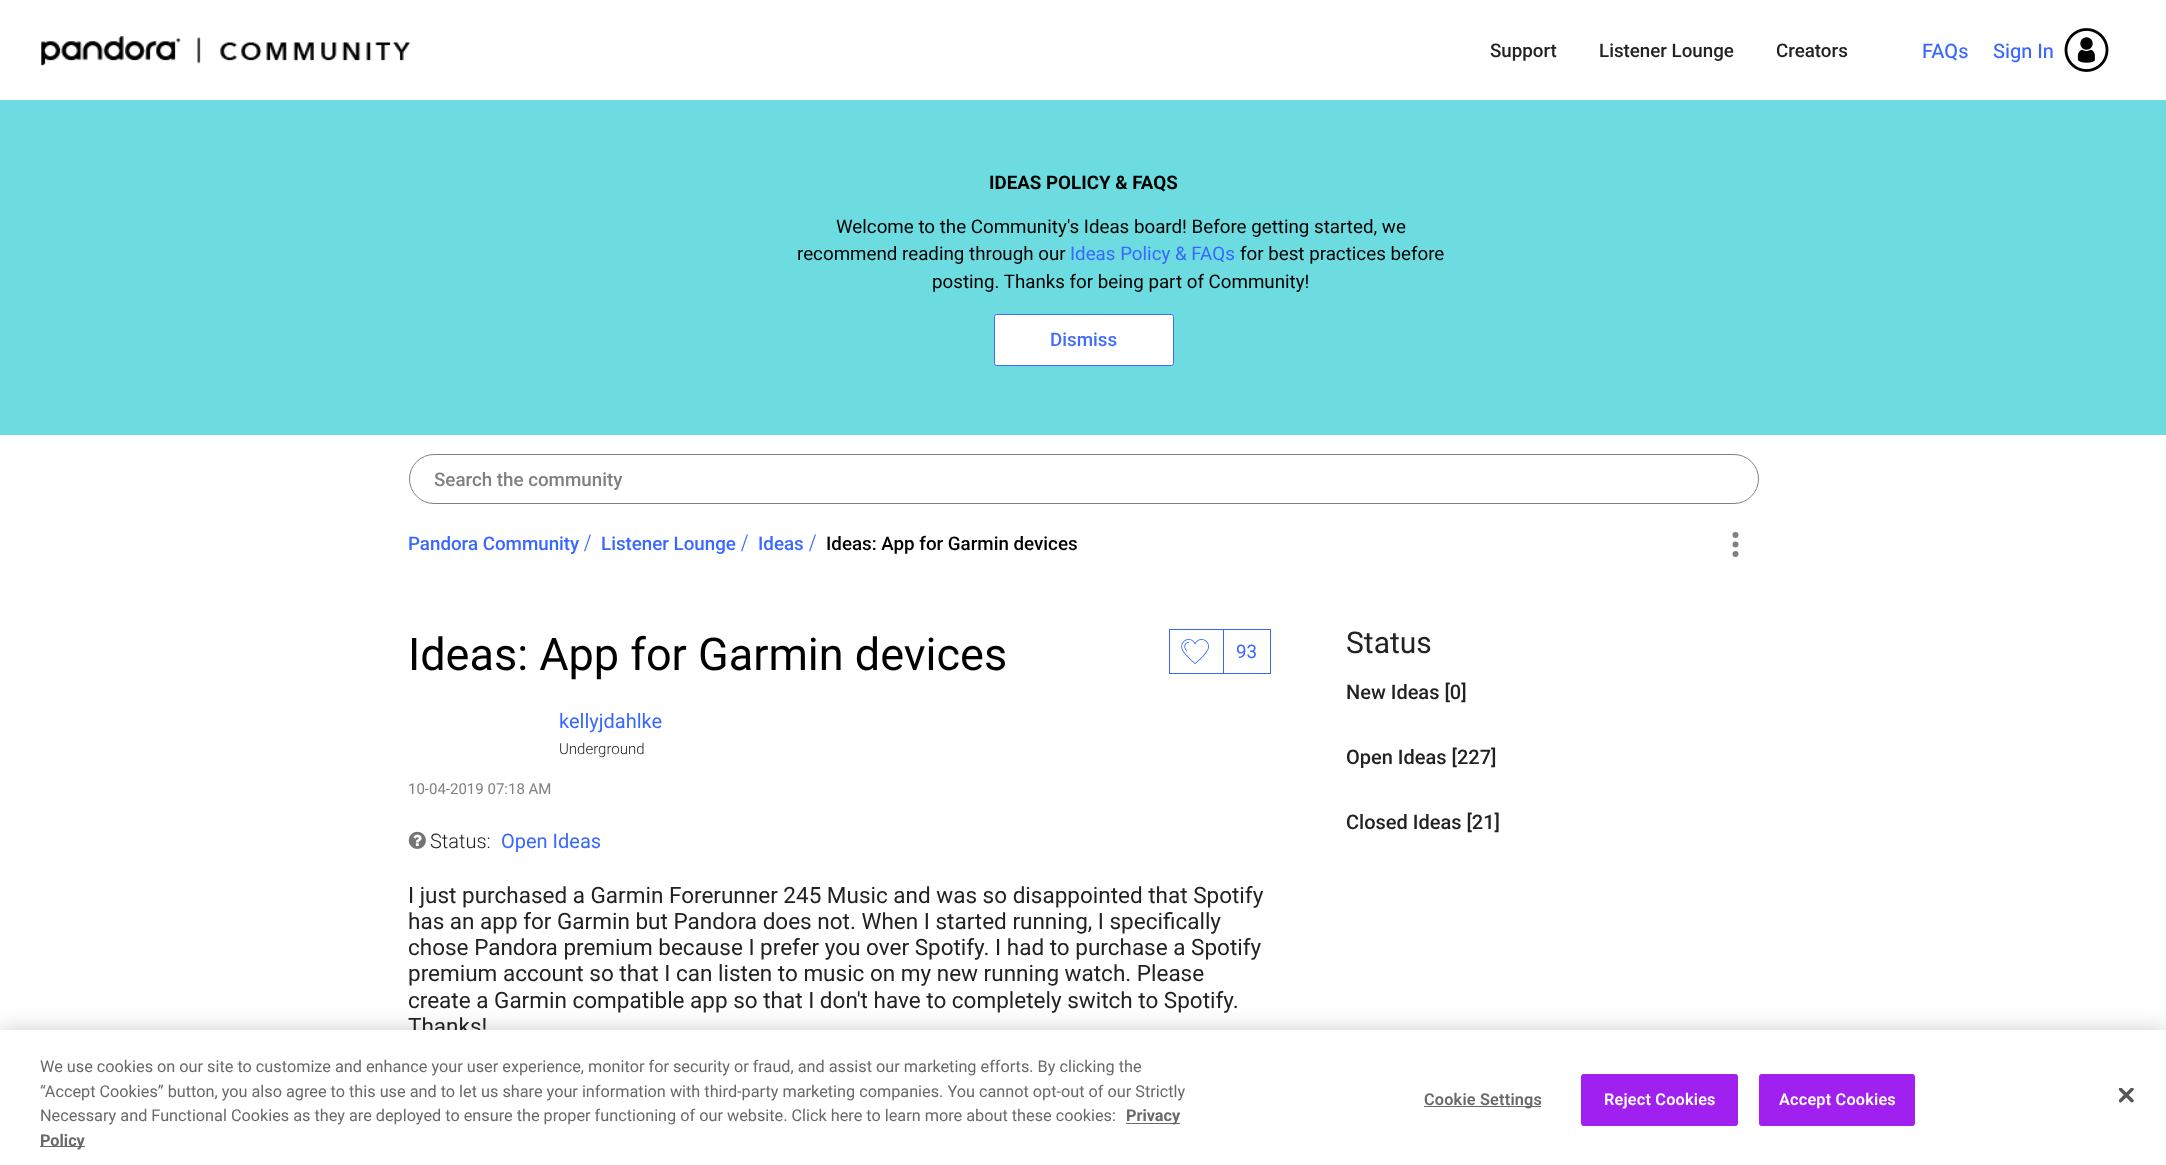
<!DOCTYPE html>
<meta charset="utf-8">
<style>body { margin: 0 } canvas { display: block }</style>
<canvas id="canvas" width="2166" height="1165"></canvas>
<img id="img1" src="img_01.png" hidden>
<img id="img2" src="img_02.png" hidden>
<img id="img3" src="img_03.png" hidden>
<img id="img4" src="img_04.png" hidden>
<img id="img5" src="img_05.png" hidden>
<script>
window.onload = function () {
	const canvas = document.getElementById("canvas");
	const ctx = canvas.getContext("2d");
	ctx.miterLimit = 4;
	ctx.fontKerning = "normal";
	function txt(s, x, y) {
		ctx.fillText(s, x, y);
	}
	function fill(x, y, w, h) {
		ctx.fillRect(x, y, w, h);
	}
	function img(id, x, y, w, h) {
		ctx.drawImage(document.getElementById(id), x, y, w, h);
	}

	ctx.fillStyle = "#FFFFFF";
	fill(0, 0, 2166, 1165);
	img("img1", 41, 36, 370, 30);
	img("img2", 2064, 28, 45, 44);
	ctx.fillStyle = "#6CDCE0";
	fill(0, 100, 2166, 335);
	ctx.fillStyle = "#FFFFFF";
	ctx.beginPath();
	ctx.roundRect(994.5, 314.5, 179, 51, 2);
	ctx.fill();
	ctx.strokeStyle = "#3E6CFF";
	ctx.stroke();
	ctx.beginPath();
	ctx.roundRect(409.5, 454.5, 1349, 49, 24.5);
	ctx.strokeStyle = "#808080";
	ctx.stroke();
	ctx.fillStyle = "#808080";
	ctx.beginPath();
	ctx.arc(1735.5, 535, 3, 0, Math.PI * 2);
	ctx.fill();
	ctx.beginPath();
	ctx.arc(1735.5, 544.5, 3, 0, Math.PI * 2);
	ctx.fill();
	ctx.beginPath();
	ctx.arc(1735.5, 554, 3, 0, Math.PI * 2);
	ctx.fill();
	ctx.strokeStyle = "#3668FF";
	ctx.strokeRect(1169.5, 629.5, 101, 44);
	img("img3", 1181, 639, 28, 25);
	ctx.fillStyle = "#3668FF";
	fill(1223, 630, 1, 43);
	img("img4", 408, 831, 18, 18);
	ctx.fillStyle = "rgba(0, 0, 0, 0.2)";
	ctx.filter = "blur(11px)";
	ctx.beginPath();
	ctx.rect(0, 1030, 2166, 135);
	ctx.fill();
	ctx.filter = "none";
	ctx.font = "500 18.75px Roboto";
	ctx.fillStyle = "#222222";
	txt("Support", 1490, 57);
	txt("Listener Lounge", 1599, 57);
	txt("Creators", 1776, 57);
	ctx.font = "20px 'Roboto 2'";
	ctx.fillStyle = "#3868FF";
	txt("FAQs", 1922, 58);
	txt("Sign In", 1993, 58);
	ctx.font = "bold 18.75px Roboto";
	ctx.fillStyle = "#000000";
	txt("IDEAS POLICY & FAQS", 989, 189);
	ctx.font = "18.75px Roboto";
	txt("Welcome to the Community's Ideas board! Before getting started, we", 836, 233);
	txt("recommend reading through our", 797, 260);
	ctx.fillStyle = "#3868FF";
	txt("Ideas Policy & FAQs", 1070, 260);
	ctx.fillStyle = "#000000";
	txt("for best practices before", 1240, 260);
	txt("posting. Thanks for being part of Community!", 932, 288);
	ctx.font = "500 18.75px Roboto";
	ctx.fillStyle = "#3E6CFF";
	txt("Dismiss", 1050, 346);
	ctx.fillStyle = "#808080";
	txt("Search the community", 434, 486);
	ctx.fillStyle = "#3868FF";
	txt("Pandora Community", 408, 550);
	ctx.font = "25px Liberation Serif";
	txt("/", 584, 551);
	ctx.font = "500 18.75px Roboto";
	txt("Listener Lounge", 601, 550);
	ctx.font = "25px Liberation Serif";
	txt("/", 741, 551);
	ctx.font = "500 18.75px Roboto";
	txt("Ideas", 758, 550);
	ctx.font = "25px Liberation Serif";
	txt("/", 809, 551);
	ctx.font = "500 18.75px Roboto";
	ctx.fillStyle = "#000000";
	txt("Ideas: App for Garmin devices", 826, 550);
	ctx.font = "45px Roboto";
	txt("Ideas: App for Garmin devices", 408, 670);
	ctx.font = "20px Roboto";
	ctx.fillStyle = "#3868FF";
	txt("kellyjdahlke", 559, 728);
	ctx.font = "300 15px Roboto";
	ctx.fillStyle = "#222222";
	txt("Underground", 559, 754);
	ctx.font = "15px Roboto";
	ctx.fillStyle = "#808080";
	txt("10-04-2019 07:18 AM", 408, 794);
	ctx.font = "18.75px Roboto";
	ctx.fillStyle = "#3868FF";
	txt("93", 1236, 658);
	ctx.font = "300 20px Roboto";
	ctx.fillStyle = "#222222";
	txt("Status:", 430, 848);
	ctx.font = "20px Roboto";
	ctx.fillStyle = "#3868FF";
	txt("Open Ideas", 501, 848);
	ctx.font = "22.5px Roboto";
	ctx.fillStyle = "#222222";
	txt("I just purchased a Garmin Forerunner 245 Music and was so disappointed that Spotify", 408, 903);
	txt("has an app for Garmin but Pandora does not. When I started running, I specifically", 408, 929);
	txt("chose Pandora premium because I prefer you over Spotify. I had to purchase a Spotify", 408, 955);
	txt("premium account so that I can listen to music on my new running watch. Please", 408, 981);
	txt("create a Garmin compatible app so that I don't have to completely switch to Spotify.", 408, 1008);
	txt("Thanks!", 408, 1034);
	ctx.font = "30px Roboto";
	txt("Status", 1346, 653);
	ctx.font = "500 20px Roboto";
	txt("New Ideas [0]", 1346, 699);
	txt("Open Ideas [227]", 1346, 764);
	txt("Closed Ideas [21]", 1346, 829);
	ctx.fillStyle = "#FFFFFF";
	fill(0, 1030, 2166, 135);
	ctx.font = "16.25px Roboto";
	ctx.fillStyle = "#696969";
	txt("We use cookies on our site to customize and enhance your user experience, monitor for security or fraud, and assist our marketing efforts. By clicking the", 40, 1072);
	txt("“Accept Cookies” button, you also agree to this use and to let us share your information with third-party marketing companies. You cannot opt-out of our Strictly", 40, 1097);
	txt("Necessary and Functional Cookies as they are deployed to ensure the proper functioning of our website. Click here to learn more about these cookies:", 40, 1121);
	fill(1126, 1123, 54, 1);
	ctx.font = "bold 16.25px Roboto";
	txt("Privacy", 1126, 1121);
	fill(40, 1146, 45, 1);
	txt("Policy", 40, 1146);
	fill(1424, 1106, 117, 1);
	ctx.letterSpacing = "0.2px";
	ctx.font = "600 16.25px Roboto";
	txt("Cookie Settings", 1424, 1105);
	ctx.fillStyle = "#A020F0";
	ctx.beginPath();
	ctx.roundRect(1581.5, 1074.5, 156, 51, 2);
	ctx.fill();
	ctx.strokeStyle = "#A020F0";
	ctx.stroke();
	ctx.fillStyle = "#FFFFFF";
	txt("Reject Cookies", 1604, 1105);
	ctx.fillStyle = "#A020F0";
	ctx.beginPath();
	ctx.roundRect(1759.5, 1074.5, 155, 51, 2);
	ctx.fill();
	ctx.stroke();
	ctx.fillStyle = "#FFFFFF";
	txt("Accept Cookies", 1779, 1105);
	img("img5", 2119, 1088, 15, 15);
};
</script>
